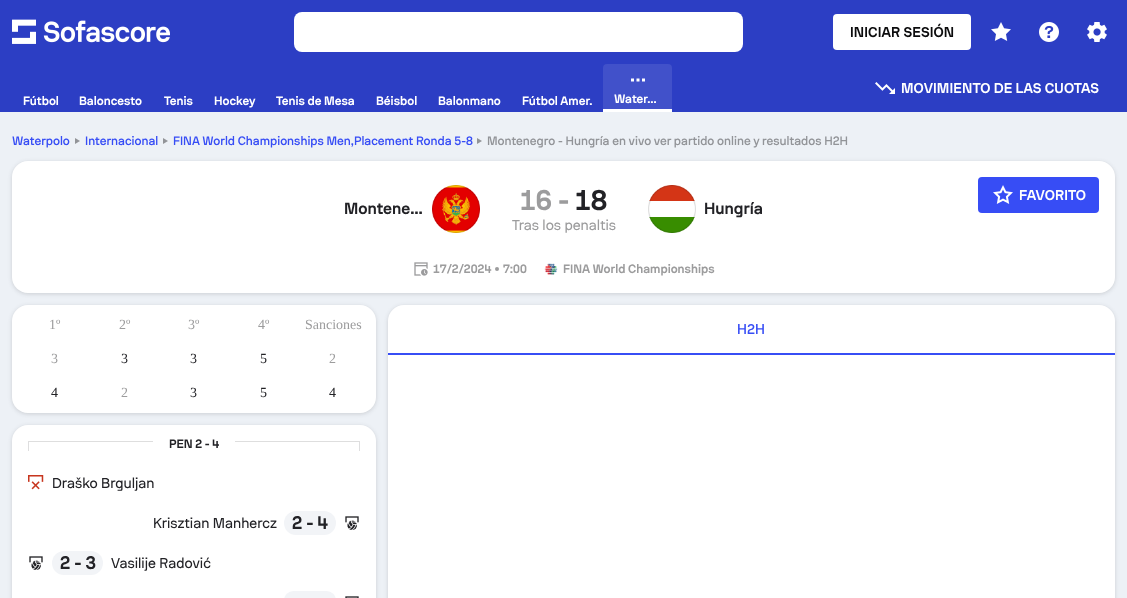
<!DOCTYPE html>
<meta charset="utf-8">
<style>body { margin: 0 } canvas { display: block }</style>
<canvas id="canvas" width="1127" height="598"></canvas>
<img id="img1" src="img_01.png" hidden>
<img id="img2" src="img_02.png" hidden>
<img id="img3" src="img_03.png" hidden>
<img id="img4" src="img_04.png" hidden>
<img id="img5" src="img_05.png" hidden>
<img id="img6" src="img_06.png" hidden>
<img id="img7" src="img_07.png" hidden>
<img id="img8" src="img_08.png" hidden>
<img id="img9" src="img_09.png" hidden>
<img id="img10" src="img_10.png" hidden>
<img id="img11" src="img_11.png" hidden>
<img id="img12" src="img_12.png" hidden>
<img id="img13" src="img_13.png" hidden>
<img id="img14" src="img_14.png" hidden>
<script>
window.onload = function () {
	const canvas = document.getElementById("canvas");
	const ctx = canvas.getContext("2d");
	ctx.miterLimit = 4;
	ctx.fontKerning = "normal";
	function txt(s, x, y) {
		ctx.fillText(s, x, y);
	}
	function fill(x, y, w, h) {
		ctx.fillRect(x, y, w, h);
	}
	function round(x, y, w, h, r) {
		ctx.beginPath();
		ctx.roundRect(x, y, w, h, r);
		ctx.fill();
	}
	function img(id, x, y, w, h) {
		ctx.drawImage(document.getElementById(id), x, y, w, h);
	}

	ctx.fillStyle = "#EDF1F6";
	fill(0, 0, 1127, 598);
	ctx.fillStyle = "#2C3EC4";
	fill(0, 0, 1127, 112);
	img("img1", 12, 19, 158, 25);
	ctx.fillStyle = "#FFFFFF";
	round(294, 12, 449, 40, 8);
	round(833, 14, 138, 36, 4);
	img("img2", 991, 22, 20, 19);
	img("img3", 1039, 22, 20, 20);
	img("img4", 1087, 22, 20, 20);
	img("img5", 875, 82, 20, 12);
	ctx.fillStyle = "#4151CA";
	ctx.beginPath();
	ctx.roundRect(603, 64, 69, 48, [4, 4, 0, 0]);
	ctx.fill();
	ctx.fillStyle = "#FFFFFF";
	fill(603, 109, 69, 3);
	img("img6", 631, 78, 14, 4);
	ctx.fillStyle = "#929498";
	ctx.beginPath();
	ctx.moveTo(75, 144);
	ctx.lineTo(75, 138);
	ctx.lineTo(80, 141);
	ctx.closePath();
	ctx.fill();
	ctx.beginPath();
	ctx.moveTo(163, 144);
	ctx.lineTo(163, 138);
	ctx.lineTo(168, 141);
	ctx.closePath();
	ctx.fill();
	ctx.beginPath();
	ctx.moveTo(477, 144);
	ctx.lineTo(477, 138);
	ctx.lineTo(482, 141);
	ctx.closePath();
	ctx.fill();
	ctx.fillStyle = "rgba(34, 34, 38, 0.16)";
	ctx.filter = "blur(2px)";
	ctx.beginPath();
	ctx.roundRect(12, 162, 1103, 132, 16);
	ctx.fill();
	ctx.filter = "none";
	ctx.fillStyle = "#FFFFFF";
	round(12, 161, 1103, 132, 16);
	img("img7", 432, 185, 48, 48);
	img("img8", 648, 185, 48, 48);
	ctx.fillStyle = "#374DF5";
	round(978, 177, 121, 36, 4);
	img("img9", 993, 185, 20, 19);
	img("img10", 414, 262, 14, 14);
	ctx.fillStyle = "#9C9C9D";
	ctx.beginPath();
	ctx.arc(497, 269, 2, 0, Math.PI * 2);
	ctx.fill();
	img("img11", 544, 263, 14, 12);
	ctx.fillStyle = "rgba(34, 34, 38, 0.16)";
	ctx.filter = "blur(2px)";
	ctx.beginPath();
	ctx.roundRect(12, 306, 364, 108, 16);
	ctx.fill();
	ctx.filter = "none";
	ctx.fillStyle = "#FFFFFF";
	round(12, 305, 364, 108, 16);
	ctx.fillStyle = "rgba(34, 34, 38, 0.16)";
	ctx.filter = "blur(2px)";
	ctx.beginPath();
	ctx.roundRect(12, 426, 364, 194, 16);
	ctx.fill();
	ctx.filter = "none";
	ctx.fillStyle = "#FFFFFF";
	round(12, 425, 364, 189, 16);
	ctx.fillStyle = "#DEDEDE";
	ctx.beginPath();
	ctx.moveTo(28, 441);
	ctx.lineTo(153, 441);
	ctx.lineTo(153, 442);
	ctx.lineTo(29, 442);
	ctx.closePath();
	ctx.fill();
	ctx.fillStyle = "rgba(34, 34, 38, 0.15)";
	ctx.beginPath();
	ctx.moveTo(28, 451);
	ctx.lineTo(28, 441);
	ctx.lineTo(29, 442);
	ctx.lineTo(29, 451);
	ctx.closePath();
	ctx.fill();
	ctx.fillStyle = "#DEDEDE";
	ctx.beginPath();
	ctx.moveTo(235, 441);
	ctx.lineTo(360, 441);
	ctx.lineTo(359, 442);
	ctx.lineTo(235, 442);
	ctx.closePath();
	ctx.fill();
	ctx.fillStyle = "rgba(34, 34, 38, 0.15)";
	ctx.beginPath();
	ctx.moveTo(360, 441);
	ctx.lineTo(360, 451);
	ctx.lineTo(359, 451);
	ctx.lineTo(359, 442);
	ctx.closePath();
	ctx.fill();
	img("img12", 28, 475, 16, 15);
	ctx.fillStyle = "#F2F4F7";
	round(284, 511, 52, 24, 12);
	img("img13", 345, 516, 14, 14);
	img("img13", 29, 556, 14, 14);
	round(52, 551, 51, 24, 12);
	round(284, 591, 52, 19, 12);
	img("img14", 345, 596, 14, 2);
	ctx.fillStyle = "rgba(34, 34, 38, 0.16)";
	ctx.filter = "blur(2px)";
	ctx.beginPath();
	ctx.roundRect(388, 306, 727, 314, 16);
	ctx.fill();
	ctx.filter = "none";
	ctx.fillStyle = "#FFFFFF";
	round(388, 305, 727, 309, 16);
	ctx.fillStyle = "#374DF5";
	fill(388, 353, 727, 2);
	ctx.letterSpacing = "0.1px";
	ctx.font = "bold 14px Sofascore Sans";
	ctx.fillStyle = "#0C0C0D";
	txt("INICIAR SESIÓN", 850, 37);
	ctx.fillStyle = "#FFFFFF";
	txt("MOVIMIENTO DE LAS CUOTAS", 901, 93);
	ctx.letterSpacing = "0px";
	ctx.font = "bold 12px Sofascore Sans";
	txt("Fútbol", 23, 105);
	txt("Baloncesto", 79, 105);
	txt("Tenis", 164, 105);
	txt("Hockey", 214, 105);
	txt("Tenis de Mesa", 276, 105);
	txt("Béisbol", 376, 105);
	txt("Balonmano", 438, 105);
	txt("Fútbol Amer.", 522, 105);
	txt("Water…", 614, 103);
	ctx.font = "500 12px Sofascore Sans";
	ctx.fillStyle = "#374DF5";
	txt("Waterpolo", 12, 145);
	txt("Internacional", 85, 145);
	txt("FINA World Championships Men,Placement Ronda 5-8", 173, 145);
	ctx.fillStyle = "#929498";
	txt("Montenegro - Hungría en vivo ver partido online y resultados H2H", 487, 145);
	ctx.font = "bold 16px Sofascore Sans";
	ctx.fillStyle = "#222226";
	txt("Montene…", 344, 214);
	ctx.font = "bold 28px Sofascore Sans";
	ctx.fillStyle = "#9C9C9D";
	txt("16", 520, 210);
	txt("-", 558, 210);
	ctx.fillStyle = "#222226";
	txt("18", 575, 210);
	ctx.font = "14px Sofascore Sans";
	ctx.fillStyle = "#9C9C9D";
	txt("Tras los penaltis", 512, 230);
	ctx.font = "bold 16px Sofascore Sans";
	ctx.fillStyle = "#222226";
	txt("Hungría", 704, 214);
	ctx.letterSpacing = "0.1px";
	ctx.font = "bold 14px Sofascore Sans";
	ctx.fillStyle = "#FFFFFF";
	txt("FAVORITO", 1019, 200);
	ctx.letterSpacing = "0px";
	ctx.font = "bold 12px Sofascore Sans";
	ctx.fillStyle = "#9C9C9D";
	txt("17/2/2024", 433, 273);
	txt("7:00", 503, 273);
	txt("FINA World Championships", 563, 273);
	ctx.font = "14px Liberation Serif";
	txt("1º", 49, 329);
	txt("2º", 119, 329);
	txt("3º", 188, 329);
	txt("4º", 258, 329);
	txt("Sanciones", 305, 329);
	txt("3", 51, 363);
	ctx.fillStyle = "#222226";
	txt("3", 121, 363);
	txt("3", 190, 363);
	txt("5", 260, 363);
	ctx.fillStyle = "#9C9C9D";
	txt("2", 329, 363);
	ctx.fillStyle = "#222226";
	txt("4", 51, 397);
	ctx.fillStyle = "#9C9C9D";
	txt("2", 121, 397);
	ctx.fillStyle = "#222226";
	txt("3", 190, 397);
	txt("5", 260, 397);
	txt("4", 329, 397);
	ctx.font = "bold 12px Sofascore Sans";
	txt("PEN 2 - 4", 169, 448);
	ctx.font = "14px Sofascore Sans";
	txt("Draško Brguljan", 52, 488);
	txt("Krisztian Manhercz", 153, 528);
	ctx.font = "bold 18px Sofascore Sans";
	txt("2 - 4", 292, 529);
	txt("2 - 3", 60, 569);
	ctx.font = "14px Sofascore Sans";
	txt("Vasilije Radović", 111, 568);
	ctx.font = "500 14px Sofascore Sans";
	ctx.fillStyle = "#374DF5";
	txt("H2H", 737, 334);
};
</script>
